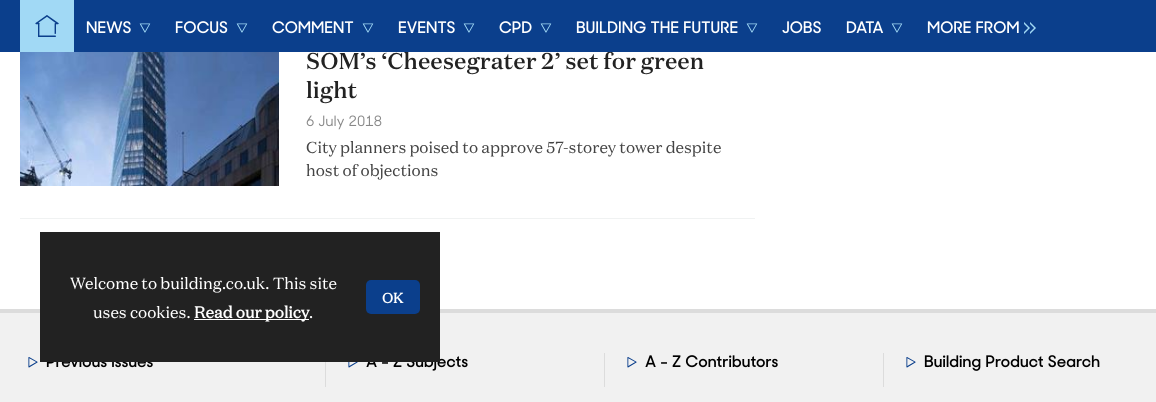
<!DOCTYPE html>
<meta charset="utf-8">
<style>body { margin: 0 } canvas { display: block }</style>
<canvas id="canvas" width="1156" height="402"></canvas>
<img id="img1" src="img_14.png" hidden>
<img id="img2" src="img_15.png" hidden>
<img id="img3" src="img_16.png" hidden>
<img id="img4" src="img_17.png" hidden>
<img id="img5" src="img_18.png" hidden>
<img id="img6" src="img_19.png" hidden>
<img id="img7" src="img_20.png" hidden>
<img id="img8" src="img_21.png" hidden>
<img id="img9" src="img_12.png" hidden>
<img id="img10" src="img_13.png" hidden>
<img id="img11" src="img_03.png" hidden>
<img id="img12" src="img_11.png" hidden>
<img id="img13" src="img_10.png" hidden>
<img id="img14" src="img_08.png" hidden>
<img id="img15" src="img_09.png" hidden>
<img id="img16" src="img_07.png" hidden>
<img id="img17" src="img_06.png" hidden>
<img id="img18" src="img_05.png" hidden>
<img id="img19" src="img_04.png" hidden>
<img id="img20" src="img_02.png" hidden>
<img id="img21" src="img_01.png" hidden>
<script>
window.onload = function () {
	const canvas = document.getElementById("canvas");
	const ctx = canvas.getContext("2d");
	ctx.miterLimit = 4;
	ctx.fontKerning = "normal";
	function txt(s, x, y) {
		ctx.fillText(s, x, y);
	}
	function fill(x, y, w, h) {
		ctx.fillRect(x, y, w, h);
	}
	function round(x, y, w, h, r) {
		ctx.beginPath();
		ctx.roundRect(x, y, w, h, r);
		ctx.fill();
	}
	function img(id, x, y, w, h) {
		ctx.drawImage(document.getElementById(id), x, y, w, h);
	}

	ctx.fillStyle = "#FFFFFF";
	fill(0, 0, 1156, 402);
	ctx.fillStyle = "#F0F2F2";
	fill(20, 218, 735, 1);
	img("img1", 20, 52, 259, 134);
	img("img2", 306, 115, 76, 15);
	ctx.fillStyle = "#F1F1F1";
	fill(0, 313, 1156, 89);
	ctx.fillStyle = "#DCDCDC";
	fill(0, 309, 1156, 4);
	img("img3", 28, 357, 10, 11);
	img("img4", 46, 362, 107, 6);
	fill(325, 362, 1, 25);
	img("img5", 348, 362, 10, 6);
	img("img6", 366, 356, 102, 15);
	fill(604, 353, 1, 34);
	img("img3", 627, 357, 10, 11);
	img("img7", 645, 355, 133, 13);
	fill(883, 353, 1, 34);
	img("img3", 906, 357, 10, 11);
	img("img8", 924, 355, 176, 16);
	ctx.fillStyle = "#222222";
	fill(40, 232, 400, 130);
	ctx.fillStyle = "#FFFFFF";
	fill(194, 319, 115, 1);
	ctx.fillStyle = "#0B3F8C";
	round(366, 280, 54, 34, 5);
	ctx.font = "500 22.75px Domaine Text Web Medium";
	ctx.fillStyle = "#222222";
	txt("SOM’s ‘Cheesegrater 2’ set for green", 306, 69);
	ctx.fillStyle = "#0B3F8C";
	fill(0, 0, 1156, 52);
	img("img9", 927, 21, 92, 13);
	img("img10", 1024, 22, 12, 12);
	img("img11", 891, 23, 12, 10);
	img("img12", 846, 21, 38, 12);
	img("img13", 782, 21, 39, 13);
	img("img14", 746, 23, 12, 10);
	img("img15", 576, 21, 162, 13);
	img("img14", 540, 23, 12, 10);
	img("img16", 499, 21, 33, 13);
	img("img11", 463, 23, 12, 10);
	img("img17", 398, 21, 57, 13);
	img("img11", 362, 23, 12, 10);
	img("img18", 272, 21, 82, 13);
	img("img11", 236, 23, 12, 10);
	img("img19", 175, 21, 53, 13);
	img("img11", 139, 23, 12, 10);
	img("img20", 86, 21, 45, 13);
	ctx.fillStyle = "#A1D9F5";
	fill(20, 0, 54, 52);
	img("img21", 35, 15, 24, 22);
	ctx.fillStyle = "#222222";
	txt("light", 306, 98);
	ctx.font = "16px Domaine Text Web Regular";
	ctx.fillStyle = "#444444";
	txt("City planners poised to approve 57-storey tower despite", 306, 153);
	txt("host of objections", 306, 176);
	ctx.fillStyle = "#FFFFFF";
	txt("Welcome to building.co.uk. This site", 70, 289);
	txt("uses cookies.", 93, 318);
	ctx.font = "bold 16px Domaine Text Web Regular";
	txt("Read our policy", 194, 318);
	ctx.font = "16px Domaine Text Web Regular";
	txt(".", 309, 318);
	ctx.font = "bold 14px Domaine Text Web Regular";
	txt("OK", 382, 303);
};
</script>
